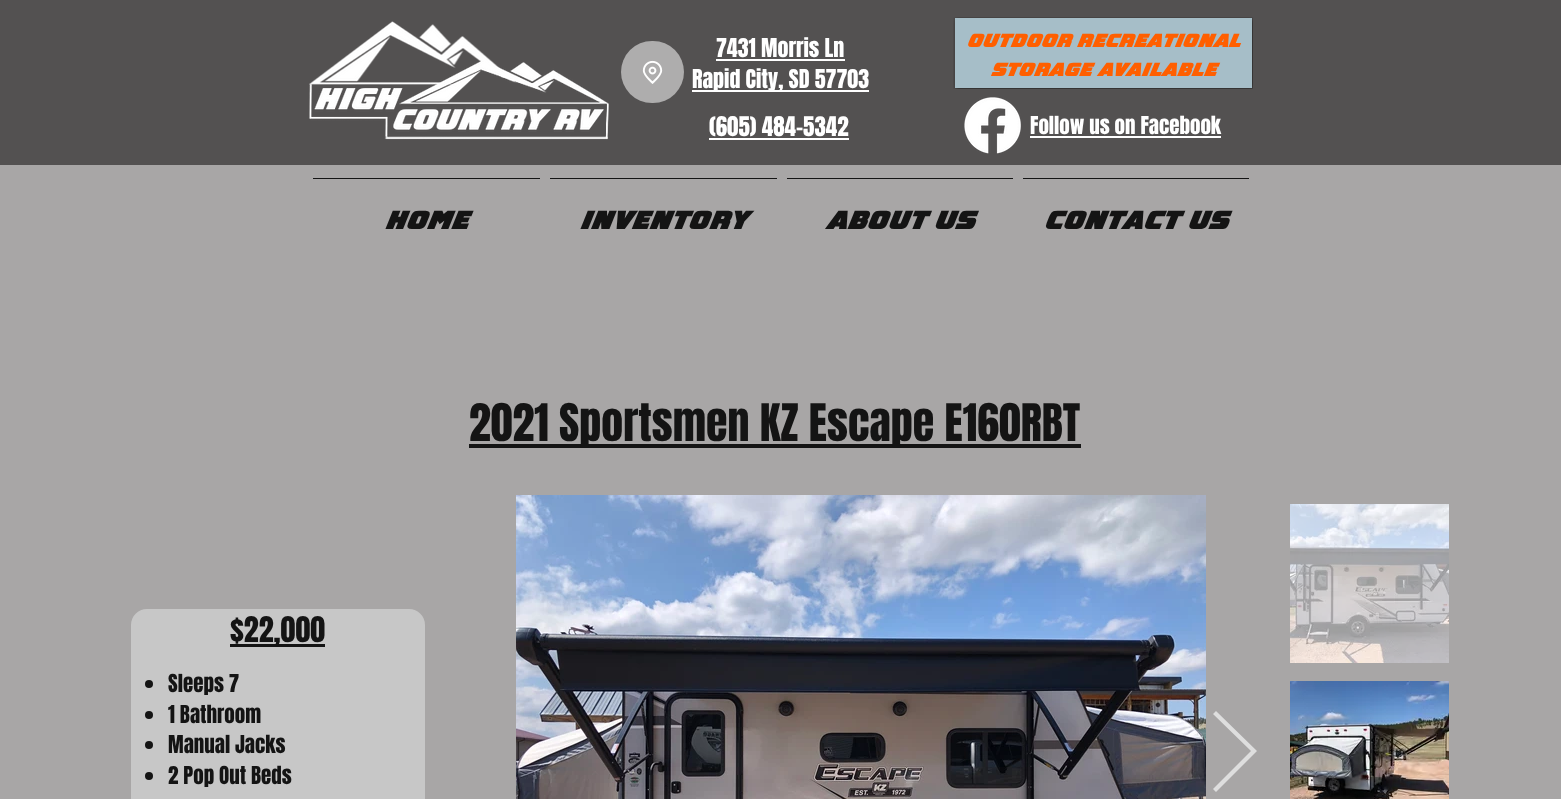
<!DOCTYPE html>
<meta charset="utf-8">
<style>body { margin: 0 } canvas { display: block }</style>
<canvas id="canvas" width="1561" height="799"></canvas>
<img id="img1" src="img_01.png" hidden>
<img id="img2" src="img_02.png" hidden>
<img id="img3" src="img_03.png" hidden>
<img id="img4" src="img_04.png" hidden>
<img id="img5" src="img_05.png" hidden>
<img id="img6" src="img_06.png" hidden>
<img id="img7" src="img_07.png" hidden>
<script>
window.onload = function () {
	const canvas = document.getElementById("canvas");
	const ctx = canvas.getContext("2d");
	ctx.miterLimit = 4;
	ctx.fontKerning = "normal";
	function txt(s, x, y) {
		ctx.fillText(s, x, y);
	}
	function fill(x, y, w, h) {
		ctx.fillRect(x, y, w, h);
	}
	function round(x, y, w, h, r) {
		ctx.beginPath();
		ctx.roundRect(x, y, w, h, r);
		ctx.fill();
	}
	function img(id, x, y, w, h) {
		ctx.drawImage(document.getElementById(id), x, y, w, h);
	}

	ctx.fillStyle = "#A8A6A6";
	fill(0, 0, 1561, 799);
	ctx.fillStyle = "#535151";
	fill(0, 0, 1561, 165);
	img("img1", 309, 21, 300, 119);
	img("img2", 953, 17, 300, 72);
	ctx.fillStyle = "#AEADAD";
	round(621, 41, 63, 62, 31);
	img("img3", 642, 60, 21, 24);
	ctx.fillStyle = "#FFFFFF";
	fill(716, 59, 129, 2);
	fill(692, 90, 177, 2);
	fill(709, 138, 140, 2);
	img("img4", 964, 97, 57, 57);
	fill(1030, 136, 191, 2);
	ctx.fillStyle = "#141414";
	fill(313, 178, 227, 1);
	fill(550, 178, 227, 1);
	fill(787, 178, 226, 1);
	fill(1023, 178, 226, 1);
	fill(469, 444, 612, 4);
	ctx.fillStyle = "#C7C7C7";
	ctx.beginPath();
	ctx.moveTo(409, 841);
	ctx.lineTo(147, 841);
	ctx.bezierCurveTo(138, 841, 131, 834, 131, 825);
	ctx.lineTo(131, 625);
	ctx.bezierCurveTo(131, 616, 138, 609, 147, 609);
	ctx.lineTo(409, 609);
	ctx.bezierCurveTo(418, 609, 425, 616, 425, 625);
	ctx.lineTo(425, 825);
	ctx.bezierCurveTo(425, 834, 418, 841, 409, 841);
	ctx.closePath();
	ctx.fill();
	img("img5", 516, 495, 690, 304);
	ctx.fillStyle = "#DEDEDE";
	ctx.beginPath();
	ctx.moveTo(1213, 714);
	ctx.lineTo(1216, 711);
	ctx.lineTo(1257, 751);
	ctx.lineTo(1216, 792);
	ctx.lineTo(1213, 789);
	ctx.lineTo(1251, 751);
	ctx.closePath();
	ctx.fill();
	img("img6", 1290, 504, 159, 159);
	img("img7", 1290, 681, 159, 118);
	ctx.fillStyle = "#141414";
	fill(230, 644, 95, 3);
	ctx.beginPath();
	ctx.arc(149, 684, 4, 0, Math.PI * 2);
	ctx.fill();
	ctx.beginPath();
	ctx.arc(149, 715, 4, 0, Math.PI * 2);
	ctx.fill();
	ctx.beginPath();
	ctx.arc(149, 745, 4, 0, Math.PI * 2);
	ctx.fill();
	ctx.beginPath();
	ctx.arc(149, 776, 4, 0, Math.PI * 2);
	ctx.fill();
	ctx.font = "22px Anton";
	ctx.fillStyle = "#FFFFFF";
	txt("7431 Morris Ln", 716, 57);
	txt("Rapid City, SD 57703", 692, 88);
	ctx.font = "italic 19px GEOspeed";
	ctx.fillStyle = "#FF5F00";
	txt("OUTDOOR RECREATIONAL", 966, 47);
	txt("STORAGE AVAILABLE", 990, 76);
	ctx.font = "23px Anton";
	ctx.fillStyle = "#FFFFFF";
	txt("(605) 484-5342", 709, 136);
	ctx.font = "21px Anton";
	txt("Follow us on Facebook", 1030, 134);
	ctx.font = "italic 26px GEOspeed";
	ctx.fillStyle = "#141414";
	txt("HOME", 384, 229);
	txt("INVENTORY", 579, 229);
	txt("ABOUT US", 825, 229);
	txt("CONTACT US", 1043, 229);
	ctx.font = "44px Anton";
	txt("2021 Sportsmen KZ Escape E160RBT", 469, 441);
	ctx.font = "30px Anton";
	txt("$22,000", 230, 642);
	ctx.font = "21px Anton";
	txt("Sleeps 7", 168, 692);
	txt("1 Bathroom", 168, 723);
	txt("Manual Jacks", 168, 753);
	txt("2 Pop Out Beds", 168, 784);
};
</script>
